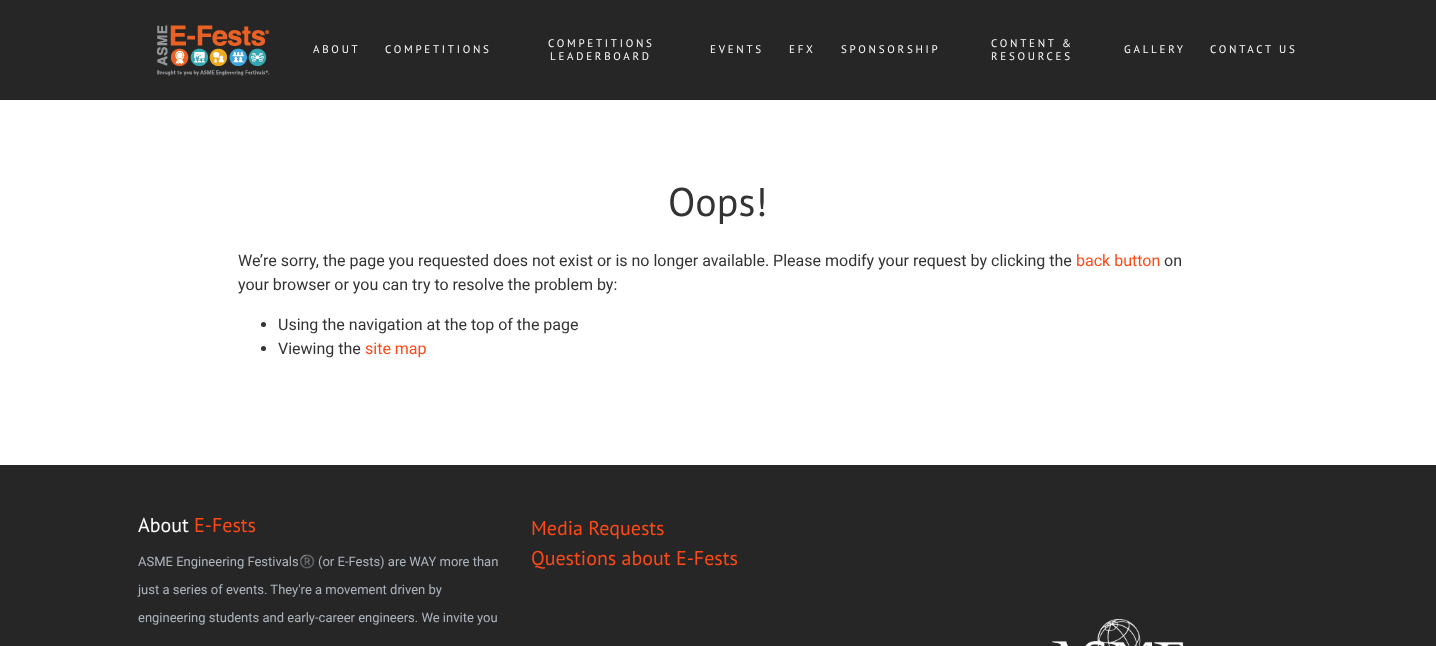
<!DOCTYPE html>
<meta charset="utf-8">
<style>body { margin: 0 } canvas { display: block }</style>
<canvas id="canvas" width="1436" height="646"></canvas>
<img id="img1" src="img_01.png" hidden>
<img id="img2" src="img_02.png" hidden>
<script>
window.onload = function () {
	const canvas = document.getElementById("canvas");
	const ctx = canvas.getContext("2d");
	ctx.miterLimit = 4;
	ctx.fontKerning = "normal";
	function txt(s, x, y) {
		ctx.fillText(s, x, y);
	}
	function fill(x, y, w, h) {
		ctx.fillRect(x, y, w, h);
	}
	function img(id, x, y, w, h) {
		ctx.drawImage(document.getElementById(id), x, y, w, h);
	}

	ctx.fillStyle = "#FFFFFF";
	fill(0, 0, 1436, 646);
	ctx.fillStyle = "#262627";
	fill(0, 0, 1436, 100);
	img("img1", 157, 25, 113, 51);
	ctx.fillStyle = "#333333";
	ctx.beginPath();
	ctx.arc(263.5, 324.5, 2.5, 0, Math.PI * 2);
	ctx.fill();
	ctx.beginPath();
	ctx.arc(263.5, 348.5, 2.5, 0, Math.PI * 2);
	ctx.fill();
	ctx.fillStyle = "#262627";
	fill(0, 465, 1436, 181);
	img("img2", 1052, 619, 132, 27);
	ctx.letterSpacing = "2.75px";
	ctx.font = "11px PT Sans";
	ctx.fillStyle = "#FFFFFF";
	txt("ABOUT", 313, 53);
	txt("COMPETITIONS", 385, 53);
	txt("COMPETITIONS", 548, 47);
	txt("LEADERBOARD", 550, 60);
	txt("EVENTS", 710, 53);
	txt("EFX", 789, 53);
	txt("SPONSORSHIP", 841, 53);
	txt("CONTENT &", 991, 47);
	txt("RESOURCES", 991, 60);
	txt("GALLERY", 1124, 53);
	txt("CONTACT US", 1210, 53);
	ctx.letterSpacing = "0px";
	ctx.font = "40px PT Sans";
	ctx.fillStyle = "#333333";
	txt("Oops!", 668, 216);
	ctx.font = "16px Roboto";
	txt("We’re sorry, the page you requested does not exist or is no longer available. Please modify your request by clicking the", 238, 266);
	ctx.fillStyle = "#FE4918";
	txt("back button", 1076, 266);
	ctx.fillStyle = "#333333";
	txt("on", 1164, 266);
	txt("your browser or you can try to resolve the problem by:", 238, 290);
	txt("Using the navigation at the top of the page", 278, 330);
	txt("Viewing the", 278, 354);
	ctx.fillStyle = "#FE4918";
	txt("site map", 365, 354);
	ctx.font = "20px PT Sans";
	ctx.fillStyle = "#FFFFFF";
	txt("About", 138, 532);
	ctx.fillStyle = "#FE4918";
	txt("E-Fests", 194, 532);
	ctx.font = "13px Roboto";
	ctx.fillStyle = "#ADB5BD";
	txt("ASME Engineering Festivals", 138, 566);
	ctx.font = "13px Noto Color Emoji";
	txt("®️", 299, 566);
	ctx.font = "13px Roboto";
	txt("(or E-Fests) are WAY more than", 318, 566);
	txt("just a series of events. They're a movement driven by", 138, 594);
	txt("engineering students and early-career engineers. We invite you", 138, 622);
	ctx.font = "20px PT Sans";
	ctx.fillStyle = "#FE4918";
	txt("Media Requests", 531, 535);
	txt("Questions about E-Fests", 531, 565);
};
</script>
